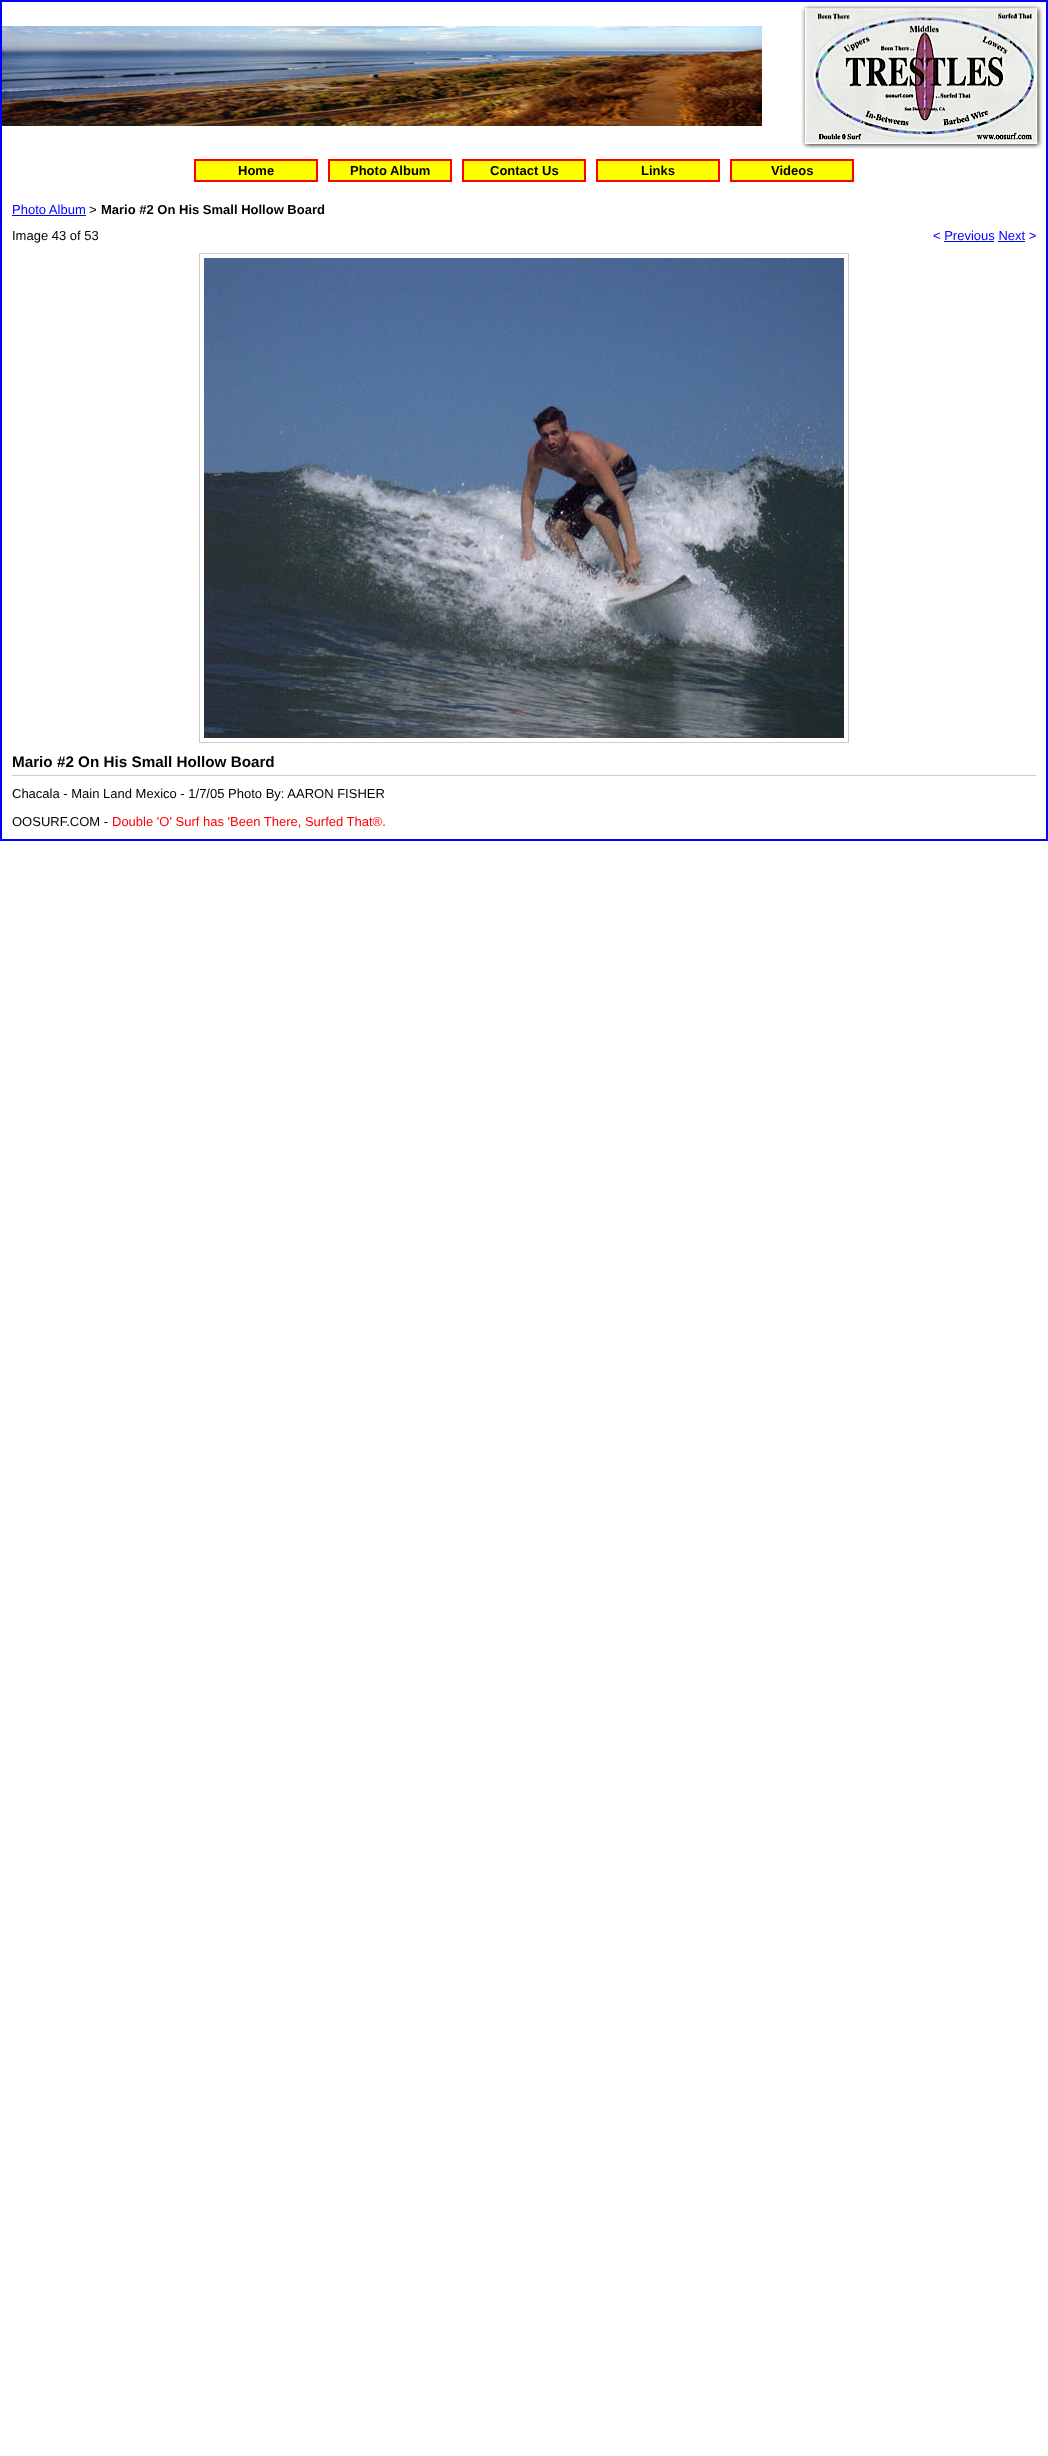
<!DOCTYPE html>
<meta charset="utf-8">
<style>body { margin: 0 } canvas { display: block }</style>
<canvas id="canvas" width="1048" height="2456"></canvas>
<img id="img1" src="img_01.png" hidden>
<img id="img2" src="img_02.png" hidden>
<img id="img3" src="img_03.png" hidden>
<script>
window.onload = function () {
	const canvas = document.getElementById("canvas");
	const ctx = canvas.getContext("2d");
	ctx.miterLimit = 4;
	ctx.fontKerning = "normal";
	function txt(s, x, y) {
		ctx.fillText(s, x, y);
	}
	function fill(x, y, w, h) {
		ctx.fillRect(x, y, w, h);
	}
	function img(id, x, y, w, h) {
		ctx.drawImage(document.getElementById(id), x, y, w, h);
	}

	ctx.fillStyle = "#FFFFFF";
	fill(0, 0, 1048, 2456);
	ctx.fillStyle = "#0000FF";
	fill(0, 0, 1048, 841);
	ctx.fillStyle = "#FFFFFF";
	fill(2, 2, 1044, 190);
	img("img1", 2, 26, 760, 100);
	img("img2", 801, 3, 242, 146);
	ctx.fillStyle = "#FF0000";
	fill(194, 159, 124, 23);
	ctx.fillStyle = "#FFFF00";
	fill(196, 161, 120, 19);
	ctx.fillStyle = "#FF0000";
	fill(328, 159, 124, 23);
	ctx.fillStyle = "#FFFF00";
	fill(330, 161, 120, 19);
	ctx.fillStyle = "#FF0000";
	fill(462, 159, 124, 23);
	ctx.fillStyle = "#FFFF00";
	fill(464, 161, 120, 19);
	ctx.fillStyle = "#FF0000";
	fill(596, 159, 124, 23);
	ctx.fillStyle = "#FFFF00";
	fill(598, 161, 120, 19);
	ctx.fillStyle = "#FF0000";
	fill(730, 159, 124, 23);
	ctx.fillStyle = "#FFFF00";
	fill(732, 161, 120, 19);
	ctx.fillStyle = "#FFFFFF";
	fill(2, 192, 1044, 647);
	ctx.fillStyle = "#0000FF";
	fill(12, 215, 74, 1);
	fill(944, 241, 50, 1);
	fill(998, 241, 27, 1);
	ctx.strokeStyle = "#CCCCCC";
	ctx.strokeRect(199.5, 253.5, 649, 489);
	img("img3", 204, 258, 640, 480);
	ctx.fillStyle = "#CCCCCC";
	fill(12, 775, 1024, 1);
	ctx.font = "bold 13px Liberation Sans";
	ctx.fillStyle = "#000000";
	txt("Home", 238, 175);
	txt("Photo Album", 350, 175);
	txt("Contact Us", 490, 175);
	txt("Links", 641, 175);
	txt("Videos", 771, 175);
	ctx.font = "13px Liberation Sans";
	ctx.fillStyle = "#0000FF";
	txt("Photo Album", 12, 214);
	ctx.font = "13px Liberation Mono";
	ctx.fillStyle = "#000000";
	txt(">", 89, 214);
	ctx.font = "bold 13px Liberation Sans";
	txt("Mario #2 On His Small Hollow Board", 101, 214);
	ctx.font = "13px Liberation Sans";
	txt("Image 43 of 53", 12, 240);
	ctx.fillStyle = "#0000FF";
	txt("< Previous Next >", 933, 240);
	ctx.font = "bold 15.25px Liberation Sans";
	ctx.fillStyle = "#000000";
	txt("Mario #2 On His Small Hollow Board", 12, 767);
	ctx.font = "13px Liberation Sans";
	txt("Chacala - Main Land Mexico - 1/7/05 Photo By: AARON FISHER", 12, 798);
	txt("OOSURF.COM -", 12, 826);
	ctx.fillStyle = "#FF0000";
	txt("Double 'O' Surf has 'Been There, Surfed That®.", 112, 826);
};
</script>
